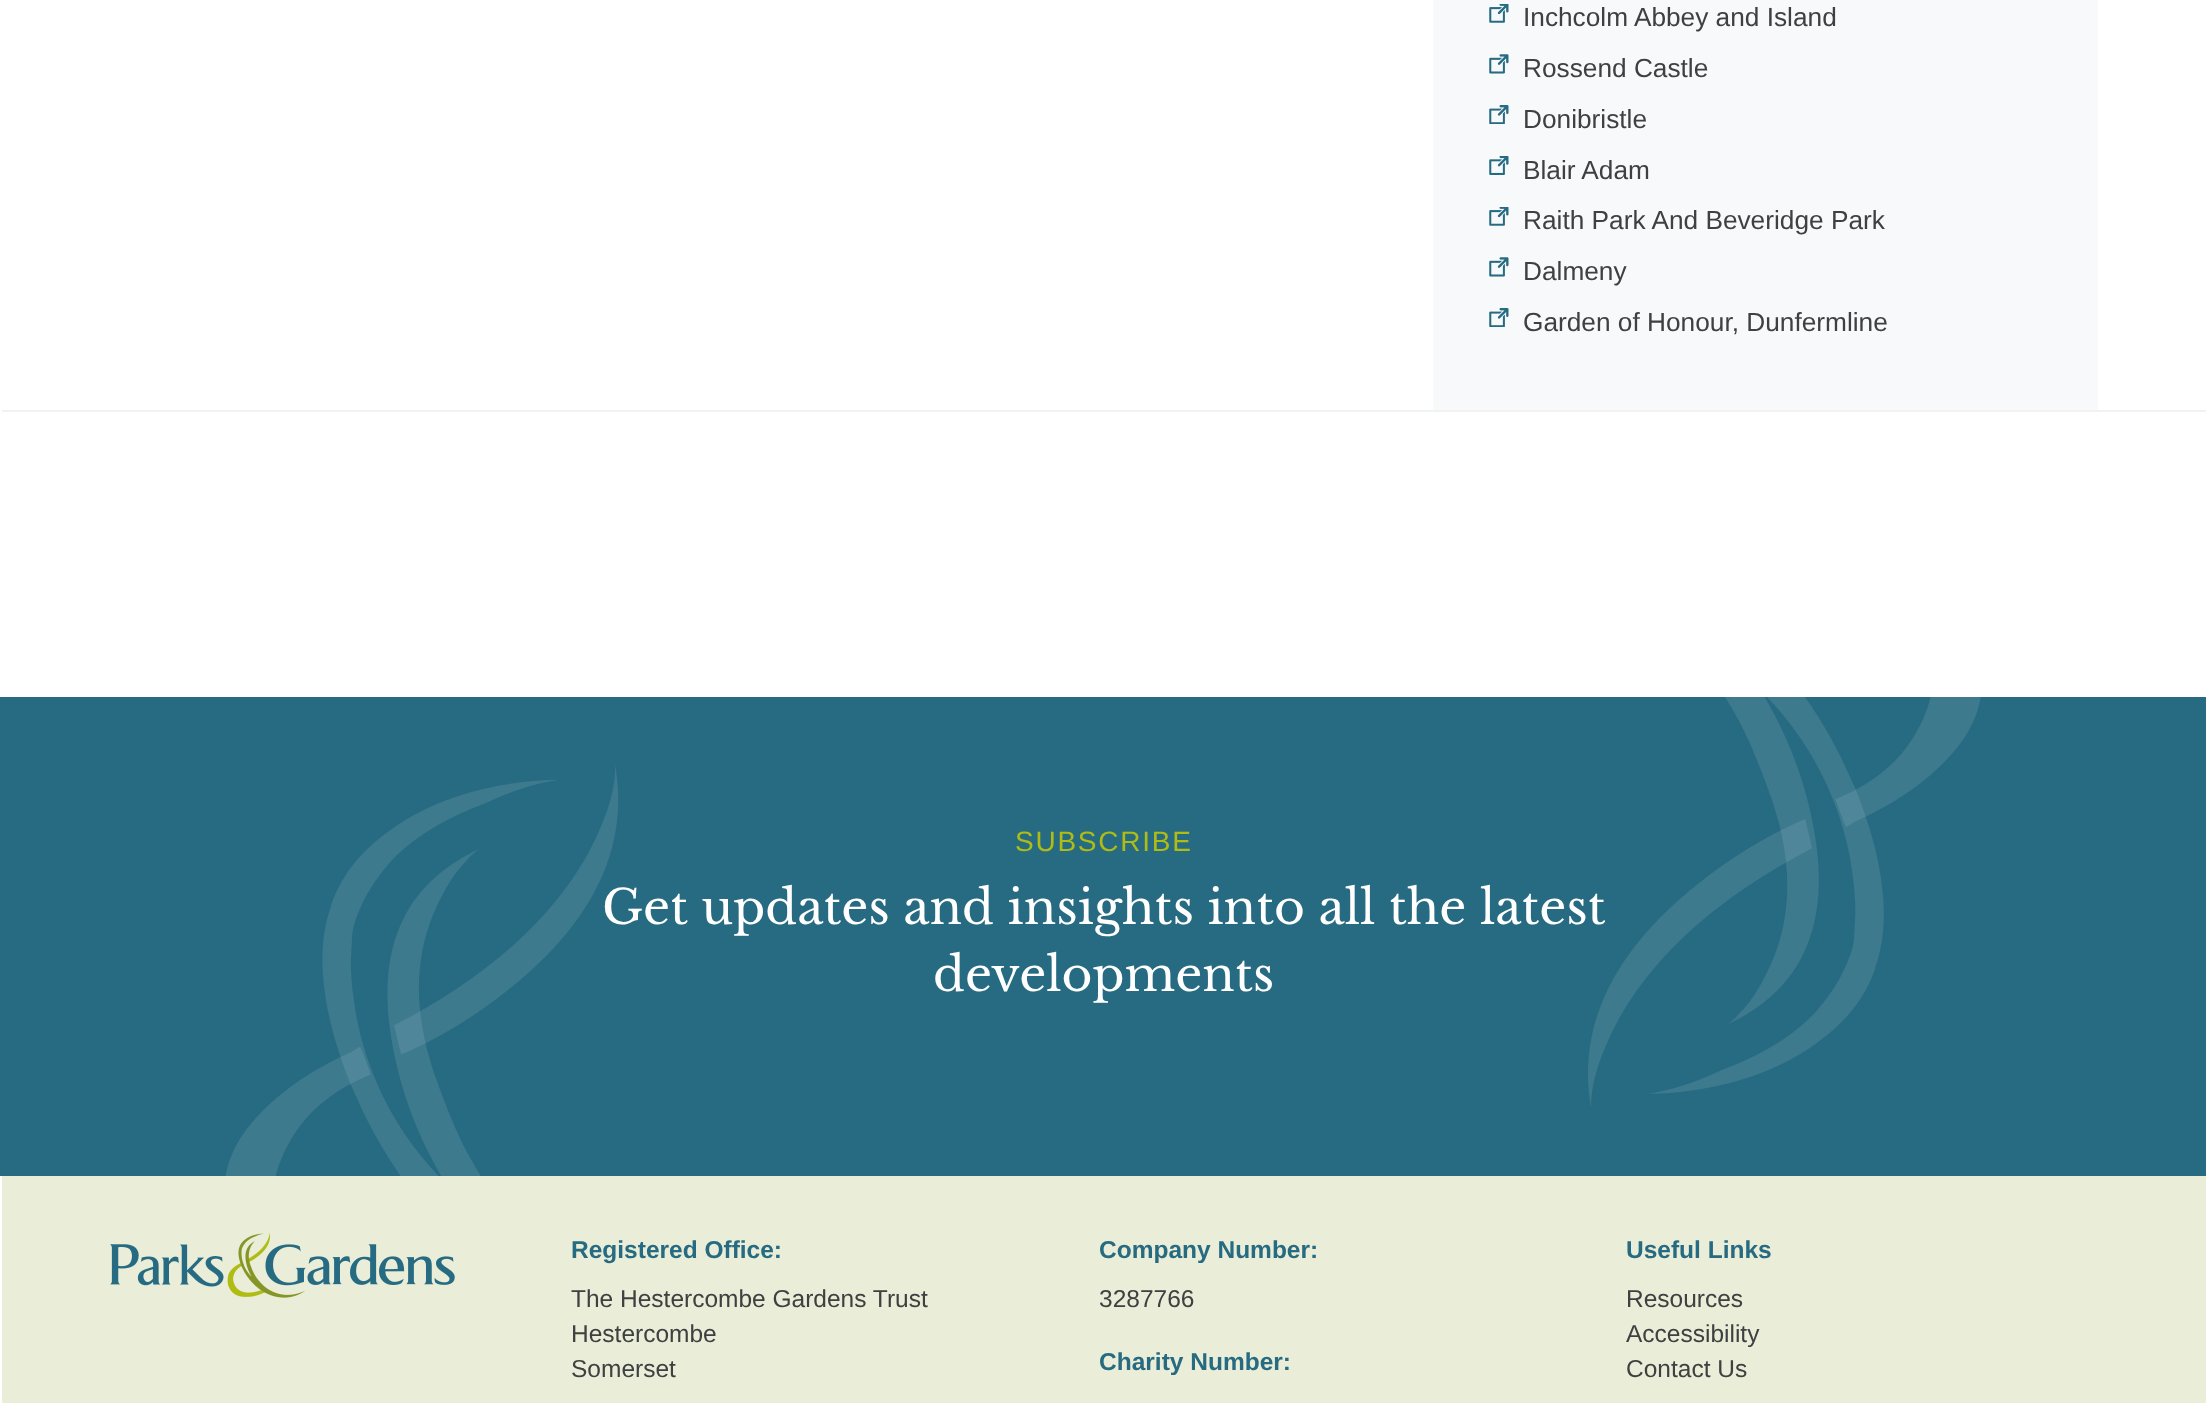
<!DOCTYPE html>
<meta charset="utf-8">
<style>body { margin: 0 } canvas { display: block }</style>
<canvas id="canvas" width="2206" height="1403"></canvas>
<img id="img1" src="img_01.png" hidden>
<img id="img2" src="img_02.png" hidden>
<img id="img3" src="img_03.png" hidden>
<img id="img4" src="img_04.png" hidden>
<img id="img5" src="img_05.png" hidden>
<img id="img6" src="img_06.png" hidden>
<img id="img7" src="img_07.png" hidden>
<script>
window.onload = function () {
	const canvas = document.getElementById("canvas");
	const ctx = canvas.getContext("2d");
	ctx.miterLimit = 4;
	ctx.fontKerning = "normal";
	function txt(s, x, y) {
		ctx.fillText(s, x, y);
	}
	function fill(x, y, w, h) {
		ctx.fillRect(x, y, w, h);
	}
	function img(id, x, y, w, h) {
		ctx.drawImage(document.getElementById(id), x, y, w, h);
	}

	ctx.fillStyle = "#FFFFFF";
	fill(0, 0, 2206, 1403);
	ctx.fillStyle = "#F8F9FA";
	fill(1433, 0, 665, 410);
	img("img1", 1489, 4, 20, 19);
	img("img2", 1489, 54, 20, 20);
	img("img3", 1489, 105, 20, 19);
	img("img4", 1489, 156, 20, 19);
	img("img1", 1489, 207, 20, 19);
	img("img2", 1489, 257, 20, 20);
	img("img3", 1489, 308, 20, 19);
	ctx.fillStyle = "#F2F2F2";
	fill(2, 410, 2204, 2);
	ctx.fillStyle = "#276B82";
	fill(0, 697, 2206, 479);
	img("img5", 225, 766, 394, 410);
	img("img6", 1588, 697, 393, 409);
	ctx.fillStyle = "#EAEDD7";
	fill(2, 1176, 2204, 227);
	img("img7", 110, 1232, 345, 66);
	ctx.font = "26.25px Liberation Sans";
	ctx.fillStyle = "#3F4041";
	txt("Inchcolm Abbey and Island", 1523, 26);
	txt("Rossend Castle", 1523, 77);
	txt("Donibristle", 1523, 128);
	txt("Blair Adam", 1523, 179);
	txt("Raith Park And Beveridge Park", 1523, 229);
	txt("Dalmeny", 1523, 280);
	txt("Garden of Honour, Dunfermline", 1523, 331);
	ctx.letterSpacing = "1.75px";
	ctx.font = "28px Liberation Sans";
	ctx.fillStyle = "#AFBC15";
	txt("SUBSCRIBE", 1015, 851);
	ctx.letterSpacing = "0px";
	ctx.font = "47.25px Libre Baskerville";
	ctx.fillStyle = "#FFFFFF";
	txt("Get updates and insights into all the latest", 602, 924);
	txt("developments", 933, 991);
	ctx.font = "bold 24.5px Liberation Sans";
	ctx.fillStyle = "#276B82";
	txt("Registered Office:", 571, 1258);
	ctx.font = "24.5px Liberation Sans";
	ctx.fillStyle = "#3F4041";
	txt("The Hestercombe Gardens Trust", 571, 1307);
	txt("Hestercombe", 571, 1342);
	txt("Somerset", 571, 1377);
	ctx.font = "bold 24.5px Liberation Sans";
	ctx.fillStyle = "#276B82";
	txt("Company Number:", 1099, 1258);
	ctx.font = "24.5px Liberation Sans";
	ctx.fillStyle = "#3F4041";
	txt("3287766", 1099, 1307);
	ctx.font = "bold 24.5px Liberation Sans";
	ctx.fillStyle = "#276B82";
	txt("Charity Number:", 1099, 1370);
	txt("Useful Links", 1626, 1258);
	ctx.font = "24.5px Liberation Sans";
	ctx.fillStyle = "#3F4041";
	txt("Resources", 1626, 1307);
	txt("Accessibility", 1626, 1342);
	txt("Contact Us", 1626, 1377);
};
</script>
